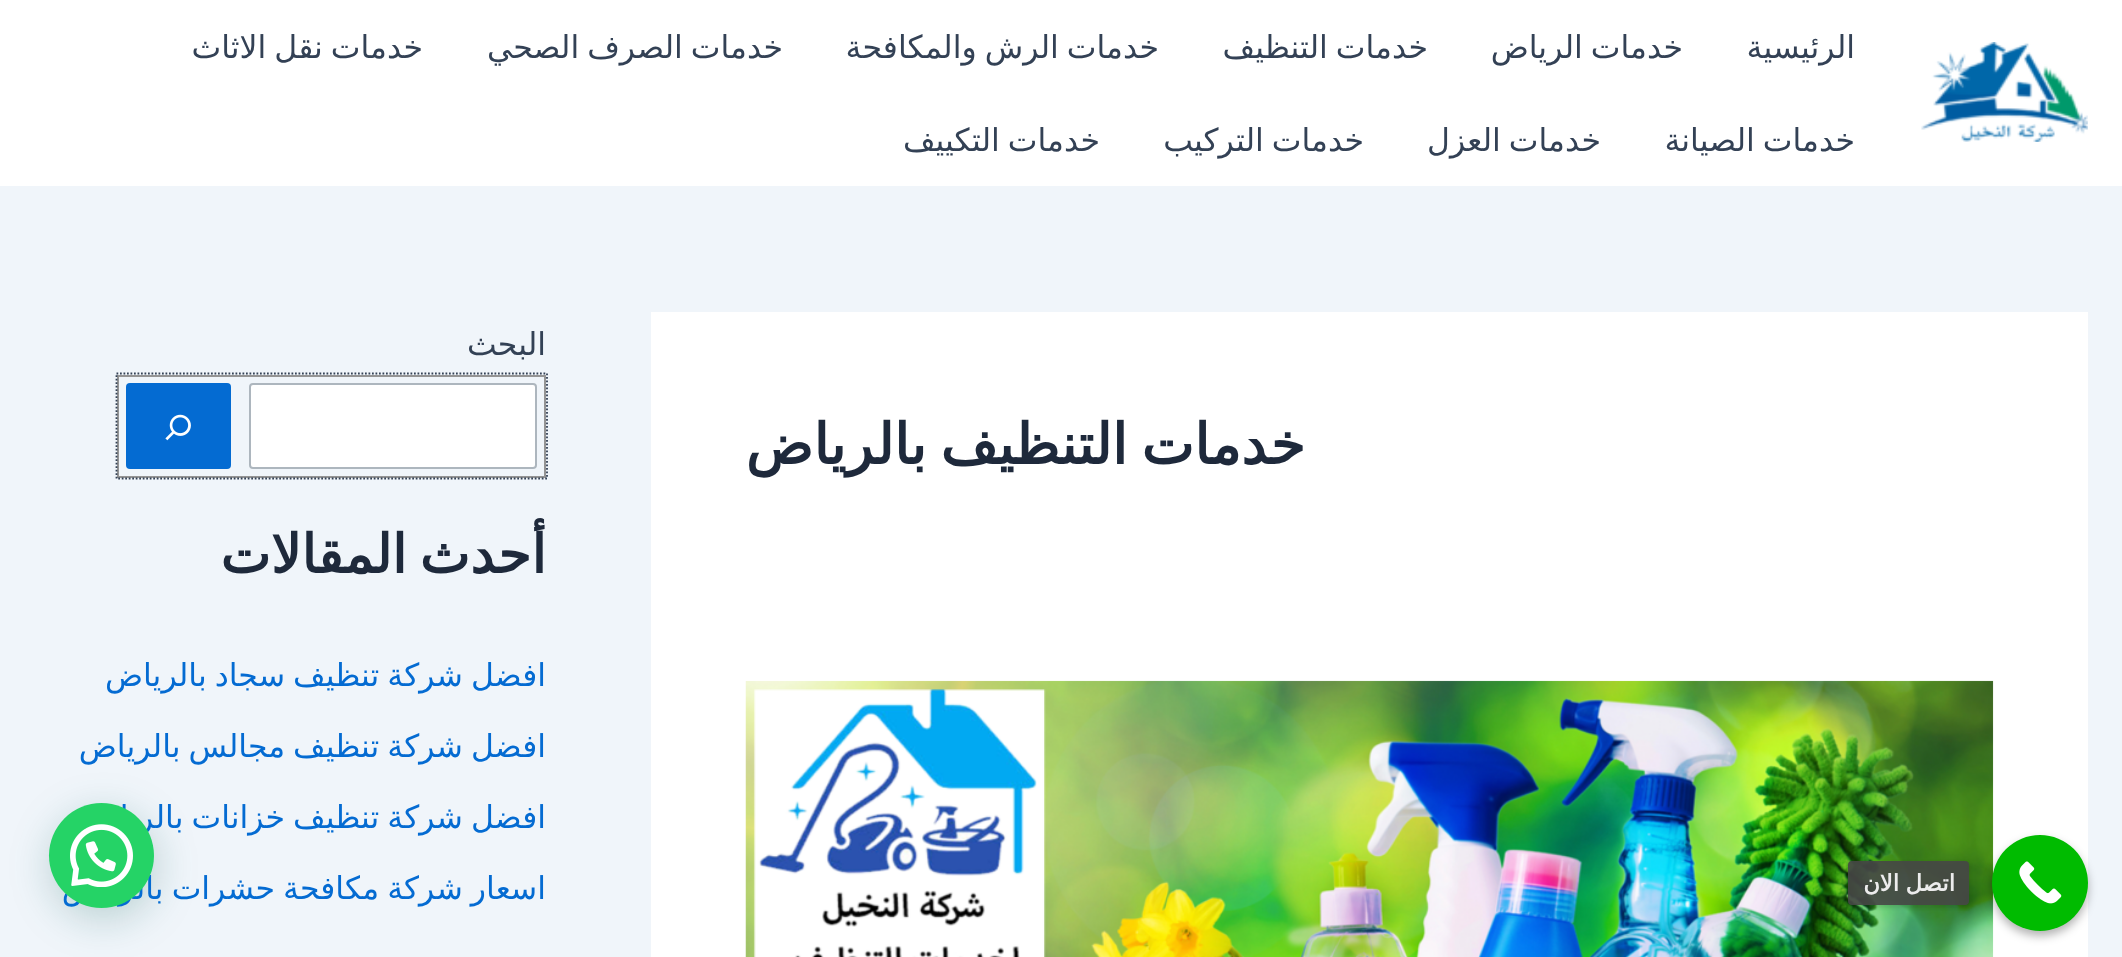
<!DOCTYPE html>
<meta charset="utf-8">
<style>body { margin: 0 } canvas { display: block }</style>
<canvas id="canvas" width="2122" height="957"></canvas>
<img id="img1" src="img_01.png" hidden>
<img id="img2" src="img_02.png" hidden>
<img id="img3" src="img_03.png" hidden>
<img id="img4" src="img_04.png" hidden>
<img id="img5" src="img_05.png" hidden>
<script>
window.onload = function () {
	const canvas = document.getElementById("canvas");
	const ctx = canvas.getContext("2d");
	ctx.miterLimit = 4;
	ctx.fontKerning = "normal";
	function txt(s, x, y) {
		ctx.fillText(s, x, y);
	}
	function fill(x, y, w, h) {
		ctx.fillRect(x, y, w, h);
	}
	function round(x, y, w, h, r) {
		ctx.beginPath();
		ctx.roundRect(x, y, w, h, r);
		ctx.fill();
	}
	function img(id, x, y, w, h) {
		ctx.drawImage(document.getElementById(id), x, y, w, h);
	}

	ctx.fillStyle = "#F0F5FA";
	fill(0, 0, 2122, 957);
	ctx.fillStyle = "#FFFFFF";
	fill(0, 0, 2122, 186);
	img("img1", 1921, 42, 167, 100);
	fill(651, 312, 1437, 645);
	img("img2", 745, 680, 1249, 277);
	ctx.strokeStyle = "#949494";
	ctx.lineWidth = 2;
	ctx.strokeRect(118, 376, 427, 101);
	ctx.beginPath();
	ctx.roundRect(250, 384, 286, 84, 3);
	ctx.fill();
	ctx.strokeStyle = "#ADB6BE";
	ctx.stroke();
	ctx.fillStyle = "#046BD2";
	round(126, 383, 105, 86, 4);
	ctx.beginPath();
	ctx.moveTo(116.5, 373.5);
	ctx.lineTo(547, 373.5);
	ctx.lineTo(547, 478.5);
	ctx.lineTo(116.5, 478.5);
	ctx.closePath();
	ctx.strokeStyle = "#334155";
	ctx.lineWidth = 1.8;
	ctx.setLineDash([1.75, 1.75]);
	ctx.stroke();
	img("img3", 165, 414, 26, 27);
	ctx.fillStyle = "rgba(0, 0, 0, 0.3)";
	ctx.filter = "blur(5px)";
	ctx.beginPath();
	ctx.roundRect(1992, 840, 96, 96, 48);
	ctx.fill();
	ctx.filter = "none";
	ctx.fillStyle = "#00BB00";
	ctx.beginPath();
	ctx.arc(2040, 883, 48, 0, Math.PI * 2);
	ctx.fill();
	img("img4", 2019, 861, 43, 43);
	ctx.save();
	ctx.beginPath();
	ctx.moveTo(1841, 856);
	ctx.lineTo(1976, 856);
	ctx.lineTo(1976, 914);
	ctx.lineTo(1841, 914);
	ctx.closePath();
	ctx.moveTo(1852, 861);
	ctx.lineTo(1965, 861);
	ctx.bezierCurveTo(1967, 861, 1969, 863, 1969, 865);
	ctx.lineTo(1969, 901);
	ctx.bezierCurveTo(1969, 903, 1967, 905, 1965, 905);
	ctx.lineTo(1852, 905);
	ctx.bezierCurveTo(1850, 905, 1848, 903, 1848, 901);
	ctx.lineTo(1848, 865);
	ctx.bezierCurveTo(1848, 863, 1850, 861, 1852, 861);
	ctx.closePath();
	ctx.clip("evenodd");
	ctx.fillStyle = "rgba(0, 0, 0, 0.15)";
	ctx.filter = "blur(2px)";
	ctx.beginPath();
	ctx.roundRect(1848, 863, 121, 44, 4);
	ctx.fill();
	ctx.filter = "none";
	ctx.restore();
	ctx.fillStyle = "rgba(70, 70, 70, 0.9)";
	round(1848, 861, 121, 44, 4);
	ctx.fillStyle = "rgba(7, 94, 84, 0.24)";
	ctx.filter = "blur(21px)";
	ctx.beginPath();
	ctx.roundRect(51, 814, 105, 105, 52.5);
	ctx.fill();
	ctx.filter = "none";
	ctx.direction = "rtl";
	ctx.font = "31.5px DejaVu Sans";
	ctx.fillStyle = "#334155";
	txt("الرئيسية", 1855, 58);
	ctx.wordSpacing = "-2px";
	txt("خدمات الرياض", 1683, 58);
	txt("خدمات التنظيف", 1428, 58);
	txt("خدمات الرش والمكافحة", 1159, 58);
	txt("خدمات الصرف الصحي", 783, 58);
	txt("خدمات نقل الاثاث", 423, 58);
	txt("خدمات الصيانة", 1855, 151);
	txt("خدمات العزل", 1601, 151);
	txt("خدمات التركيب", 1364, 151);
	txt("خدمات التكييف", 1100, 151);
	ctx.wordSpacing = "-4px";
	ctx.font = "bold 56px DejaVu Sans";
	ctx.fillStyle = "#1E293B";
	txt("خدمات التنظيف بالرياض", 1305, 464);
	ctx.wordSpacing = "0px";
	ctx.font = "31.5px DejaVu Sans";
	ctx.fillStyle = "#334155";
	txt("البحث", 546, 355);
	ctx.wordSpacing = "-4px";
	ctx.font = "bold 53.5px DejaVu Sans";
	ctx.fillStyle = "#1E293B";
	txt("أحدث المقالات", 546, 573);
	ctx.wordSpacing = "-2px";
	ctx.font = "31.5px DejaVu Sans";
	ctx.fillStyle = "#046BD2";
	txt("افضل شركة تنظيف سجاد بالرياض", 546, 686);
	txt("افضل شركة تنظيف مجالس بالرياض", 546, 757);
	txt("افضل شركة تنظيف خزانات بالرياض", 546, 828);
	txt("اسعار شركة مكافحة حشرات بالرياض", 546, 899);
	ctx.wordSpacing = "-1px";
	ctx.font = "bold 22.75px DejaVu Sans";
	ctx.fillStyle = "#ECECEC";
	txt("اتصل الان", 1955, 891);
	ctx.fillStyle = "#25D366";
	ctx.beginPath();
	ctx.arc(101.5, 855.5, 52.5, 0, Math.PI * 2);
	ctx.fill();
	img("img5", 70, 824, 63, 63);
};
</script>
